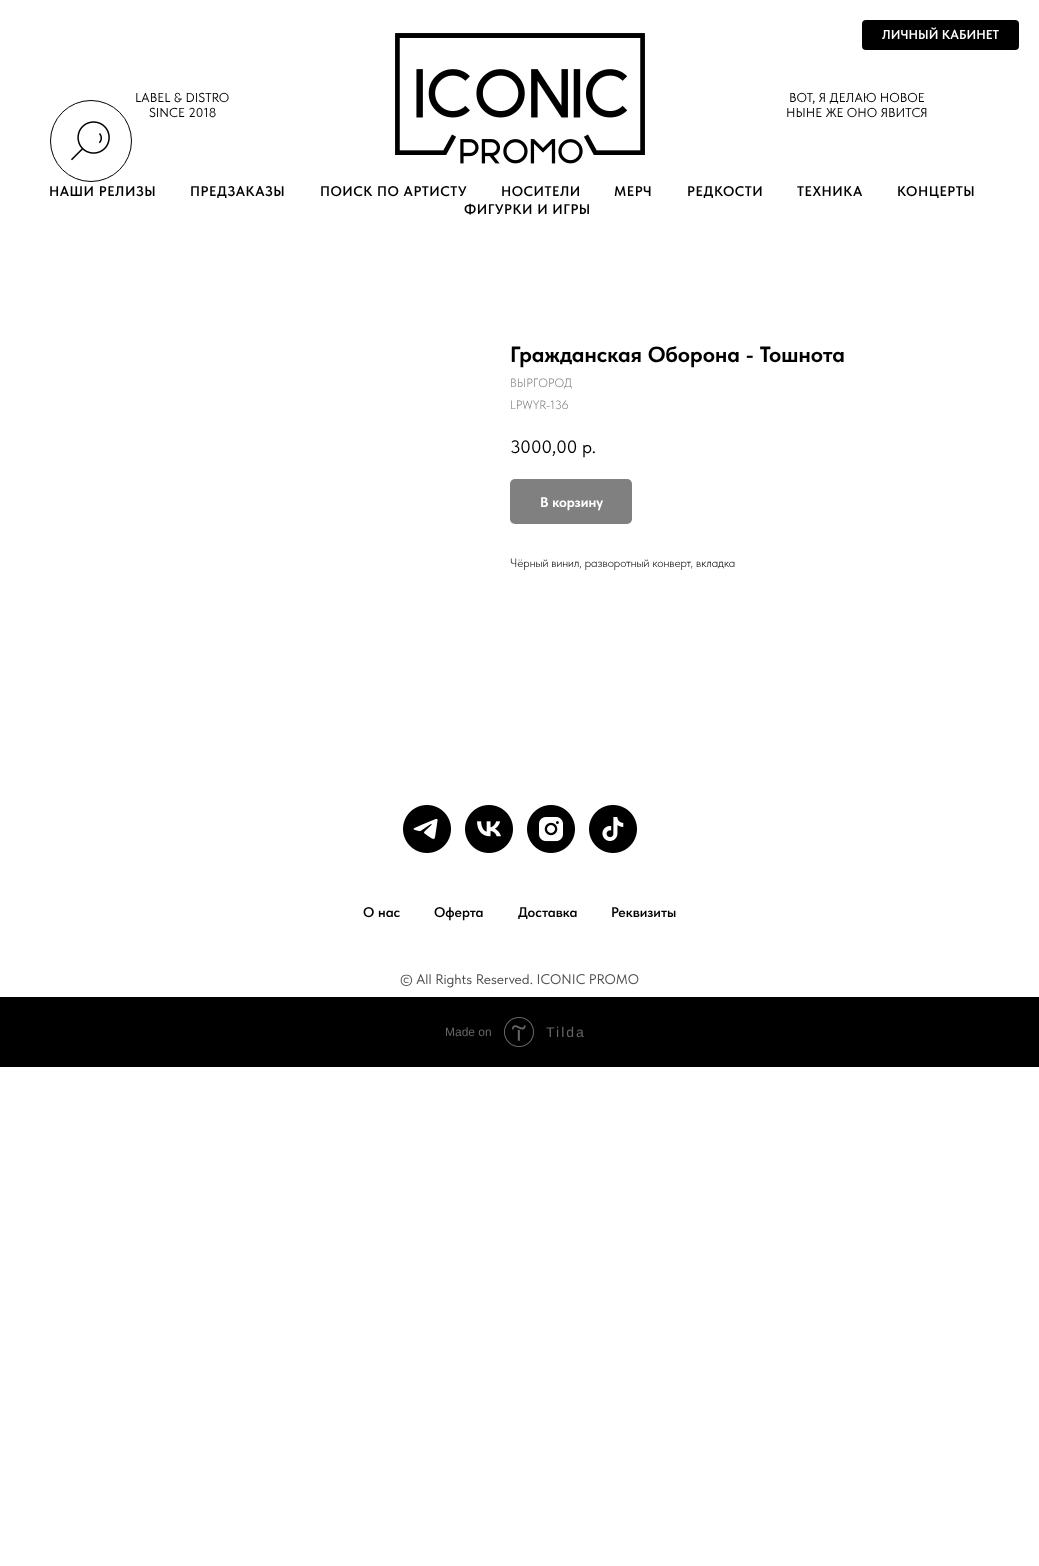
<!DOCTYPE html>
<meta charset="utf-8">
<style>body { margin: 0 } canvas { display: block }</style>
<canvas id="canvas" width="1039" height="1566"></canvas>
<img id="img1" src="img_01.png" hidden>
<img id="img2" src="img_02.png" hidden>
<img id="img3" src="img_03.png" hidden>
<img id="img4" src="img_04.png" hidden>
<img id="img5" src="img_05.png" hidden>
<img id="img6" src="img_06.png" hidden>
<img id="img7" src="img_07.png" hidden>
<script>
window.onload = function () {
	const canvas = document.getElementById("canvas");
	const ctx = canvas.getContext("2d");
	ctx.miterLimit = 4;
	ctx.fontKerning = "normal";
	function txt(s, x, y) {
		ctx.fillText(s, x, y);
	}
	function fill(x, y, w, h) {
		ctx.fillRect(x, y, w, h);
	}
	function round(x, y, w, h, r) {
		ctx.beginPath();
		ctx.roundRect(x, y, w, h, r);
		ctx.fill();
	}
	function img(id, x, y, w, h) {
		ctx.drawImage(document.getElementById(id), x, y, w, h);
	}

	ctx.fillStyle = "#FFFFFF";
	fill(0, 0, 1039, 1566);
	ctx.fillStyle = "#000000";
	round(862, 20, 157, 30, 4);
	img("img1", 395, 33, 250, 131);
	ctx.beginPath();
	ctx.arc(91, 141, 40.5, 0, Math.PI * 2);
	ctx.strokeStyle = "#000000";
	ctx.stroke();
	img("img2", 71, 121, 39, 40);
	ctx.fillStyle = "#808080";
	round(510, 479, 122, 45, 5);
	img("img3", 403, 805, 48, 48);
	img("img4", 465, 805, 48, 48);
	img("img5", 527, 805, 48, 48);
	img("img6", 589, 805, 48, 48);
	ctx.fillStyle = "#000000";
	fill(0, 997, 1039, 70);
	img("img7", 504, 1017, 30, 30);
	ctx.font = "600 13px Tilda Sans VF";
	ctx.fillStyle = "#FFFFFF";
	txt("ЛИЧНЫЙ КАБИНЕТ", 882, 39);
	ctx.font = "13px Tilda Sans VF";
	ctx.fillStyle = "#000000";
	txt("LABEL & DISTRO", 135, 102);
	txt("SINCE 2018", 149, 117);
	txt("ВОТ, Я ДЕЛАЮ НОВОЕ", 789, 102);
	txt("НЫНЕ ЖЕ ОНО ЯВИТСЯ", 786, 117);
	ctx.letterSpacing = "0.5px";
	ctx.font = "600 14px Tilda Sans VF";
	txt("НАШИ РЕЛИЗЫ", 49, 196);
	txt("ПРЕДЗАКАЗЫ", 190, 196);
	txt("ПОИСК ПО АРТИСТУ", 320, 196);
	txt("НОСИТЕЛИ", 501, 196);
	txt("МЕРЧ", 614, 196);
	txt("РЕДКОСТИ", 687, 196);
	txt("ТЕХНИКА", 797, 196);
	txt("КОНЦЕРТЫ", 897, 196);
	txt("ФИГУРКИ И ИГРЫ", 464, 214);
	ctx.letterSpacing = "0px";
	ctx.font = "bold 22px Tilda Sans VF";
	txt("Гражданская Оборона - Тошнота", 510, 362);
	ctx.font = "300 12px Tilda Sans VF";
	ctx.fillStyle = "#777777";
	txt("ВЫРГОРОД", 510, 387);
	txt("LPWYR-136", 510, 409);
	ctx.font = "18px Tilda Sans VF";
	ctx.fillStyle = "#000000";
	txt("3000,00", 510, 453);
	txt("р.", 582, 453);
	ctx.font = "bold 14px Tilda Sans VF";
	ctx.fillStyle = "#FFFFFF";
	txt("В корзину", 540, 507);
	ctx.font = "300 12px Tilda Sans VF";
	ctx.fillStyle = "#000000";
	txt("Чёрный винил, разворотный конверт, вкладка", 510, 567);
	ctx.font = "600 14px Tilda Sans VF";
	txt("О нас", 363, 917);
	txt("Оферта", 434, 917);
	txt("Доставка", 518, 917);
	txt("Реквизиты", 611, 917);
	ctx.font = "14px Tilda Sans VF";
	ctx.fillStyle = "#4D4D4D";
	txt("© All Rights Reserved. ICONIC PROMO", 400, 984);
	ctx.font = "12px Liberation Sans";
	ctx.fillStyle = "#666666";
	txt("Made on", 445, 1036);
	ctx.letterSpacing = "2px";
	ctx.font = "14px Liberation Sans";
	txt("Tilda", 546, 1037);
};
</script>
